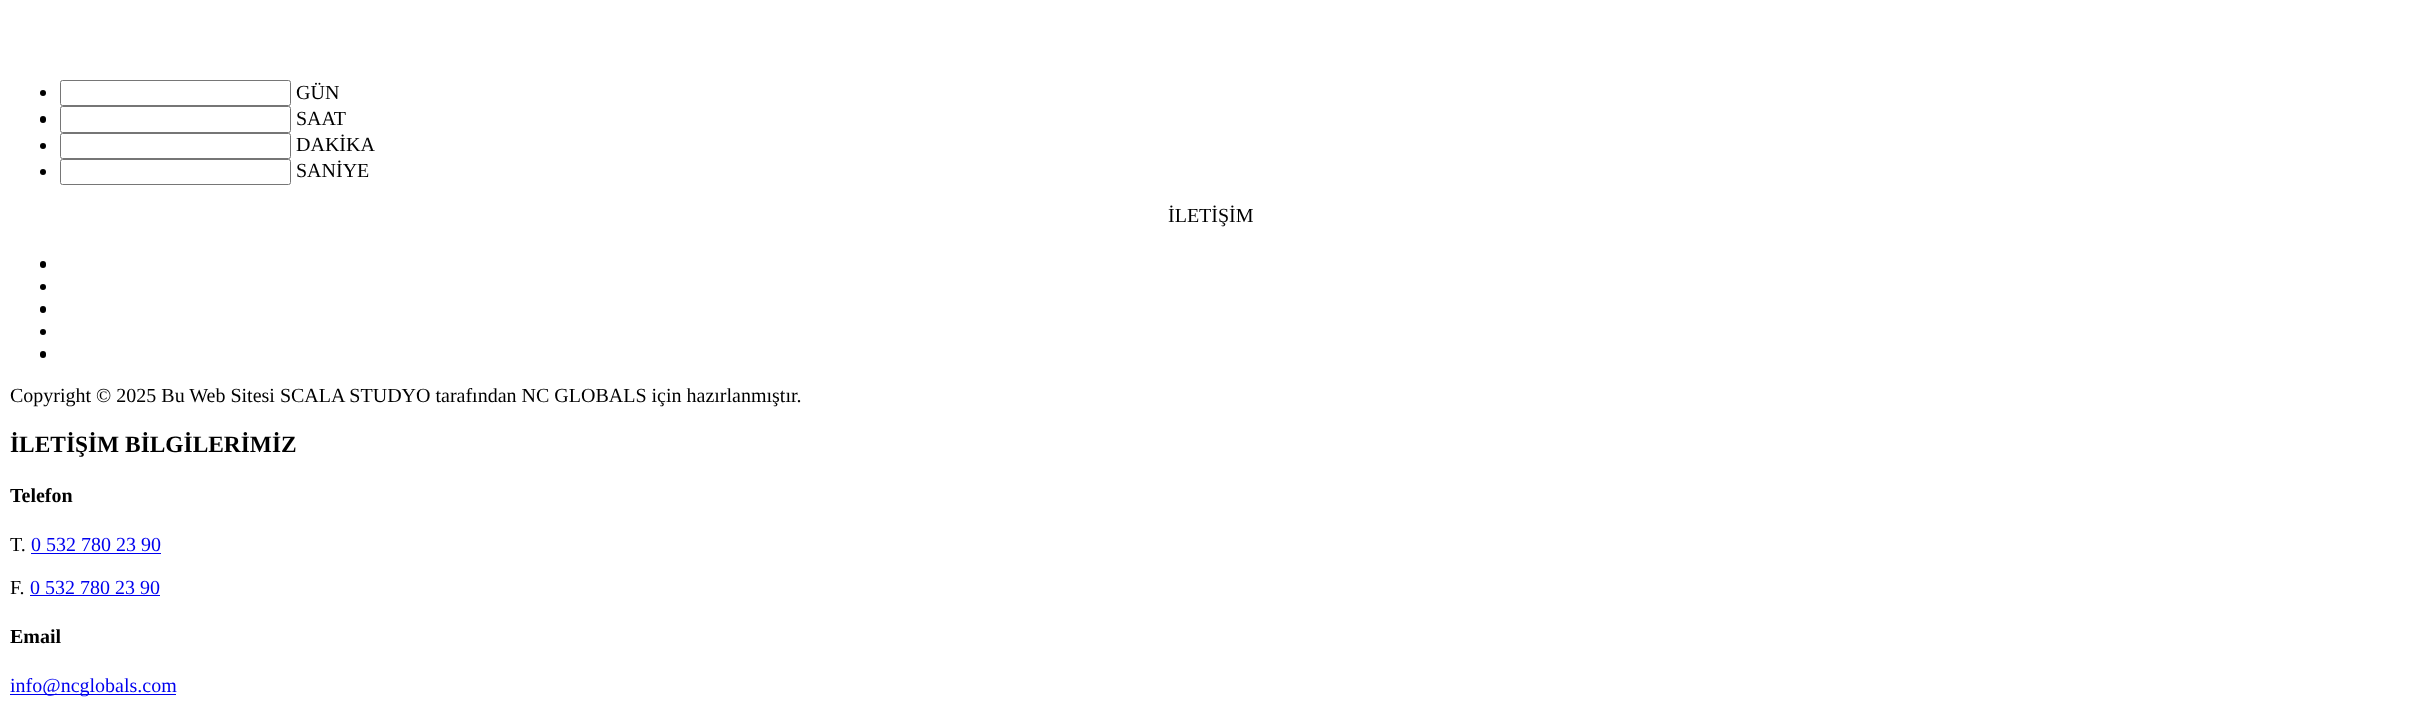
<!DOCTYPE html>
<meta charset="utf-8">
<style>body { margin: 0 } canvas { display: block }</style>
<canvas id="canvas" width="2421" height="709"></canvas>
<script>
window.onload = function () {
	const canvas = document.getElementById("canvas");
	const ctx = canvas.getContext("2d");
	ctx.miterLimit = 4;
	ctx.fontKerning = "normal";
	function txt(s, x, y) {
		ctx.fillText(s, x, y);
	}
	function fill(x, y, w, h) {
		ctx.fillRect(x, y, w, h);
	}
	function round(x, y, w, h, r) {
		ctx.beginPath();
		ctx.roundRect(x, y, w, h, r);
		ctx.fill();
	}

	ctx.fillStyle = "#FFFFFF";
	fill(0, 0, 2421, 709);
	ctx.fillStyle = "#000000";
	ctx.beginPath();
	ctx.arc(43, 93, 3, 0, Math.PI * 2);
	ctx.fill();
	ctx.beginPath();
	ctx.roundRect(60.5, 80.5, 230, 25, 2);
	ctx.strokeStyle = "#767676";
	ctx.stroke();
	round(40, 116, 6, 7, 3);
	ctx.beginPath();
	ctx.roundRect(60.5, 106.5, 230, 26, 2);
	ctx.stroke();
	ctx.beginPath();
	ctx.arc(43, 146, 3, 0, Math.PI * 2);
	ctx.fill();
	ctx.beginPath();
	ctx.roundRect(60.5, 133.5, 230, 25, 2);
	ctx.stroke();
	ctx.beginPath();
	ctx.arc(43, 172, 3, 0, Math.PI * 2);
	ctx.fill();
	ctx.beginPath();
	ctx.roundRect(60.5, 159.5, 230, 25, 2);
	ctx.stroke();
	round(40, 261, 6, 7, 3);
	ctx.beginPath();
	ctx.arc(43, 287, 3, 0, Math.PI * 2);
	ctx.fill();
	round(40, 306, 6, 7, 3);
	ctx.beginPath();
	ctx.arc(43, 332, 3, 0, Math.PI * 2);
	ctx.fill();
	round(40, 351, 6, 7, 3);
	ctx.fillStyle = "#0000EE";
	fill(31, 553, 130, 1);
	fill(30, 595, 130, 1);
	fill(10, 694, 166, 1);
	ctx.font = "20px Liberation Serif";
	ctx.fillStyle = "#000000";
	txt("GÜN", 296, 99);
	txt("SAAT", 296, 125);
	txt("DAKİKA", 296, 151);
	txt("SANİYE", 296, 177);
	txt("İLETİŞİM", 1168, 222);
	txt("Copyright © 2025 Bu Web Sitesi SCALA STUDYO tarafından NC GLOBALS için hazırlanmıştır.", 10, 402);
	ctx.font = "bold 23.4px Liberation Serif";
	txt("İLETİŞİM BİLGİLERİMİZ", 10, 452);
	ctx.font = "bold 20px Liberation Serif";
	txt("Telefon", 10, 502);
	ctx.font = "20px Liberation Serif";
	txt("T.", 10, 551);
	ctx.fillStyle = "#0000EE";
	txt("0 532 780 23 90", 31, 551);
	ctx.fillStyle = "#000000";
	txt("F.", 10, 594);
	ctx.fillStyle = "#0000EE";
	txt("0 532 780 23 90", 30, 594);
	ctx.font = "bold 20px Liberation Serif";
	ctx.fillStyle = "#000000";
	txt("Email", 10, 643);
	ctx.font = "20px Liberation Serif";
	ctx.fillStyle = "#0000EE";
	txt("info@ncglobals.com", 10, 692);
};
</script>
